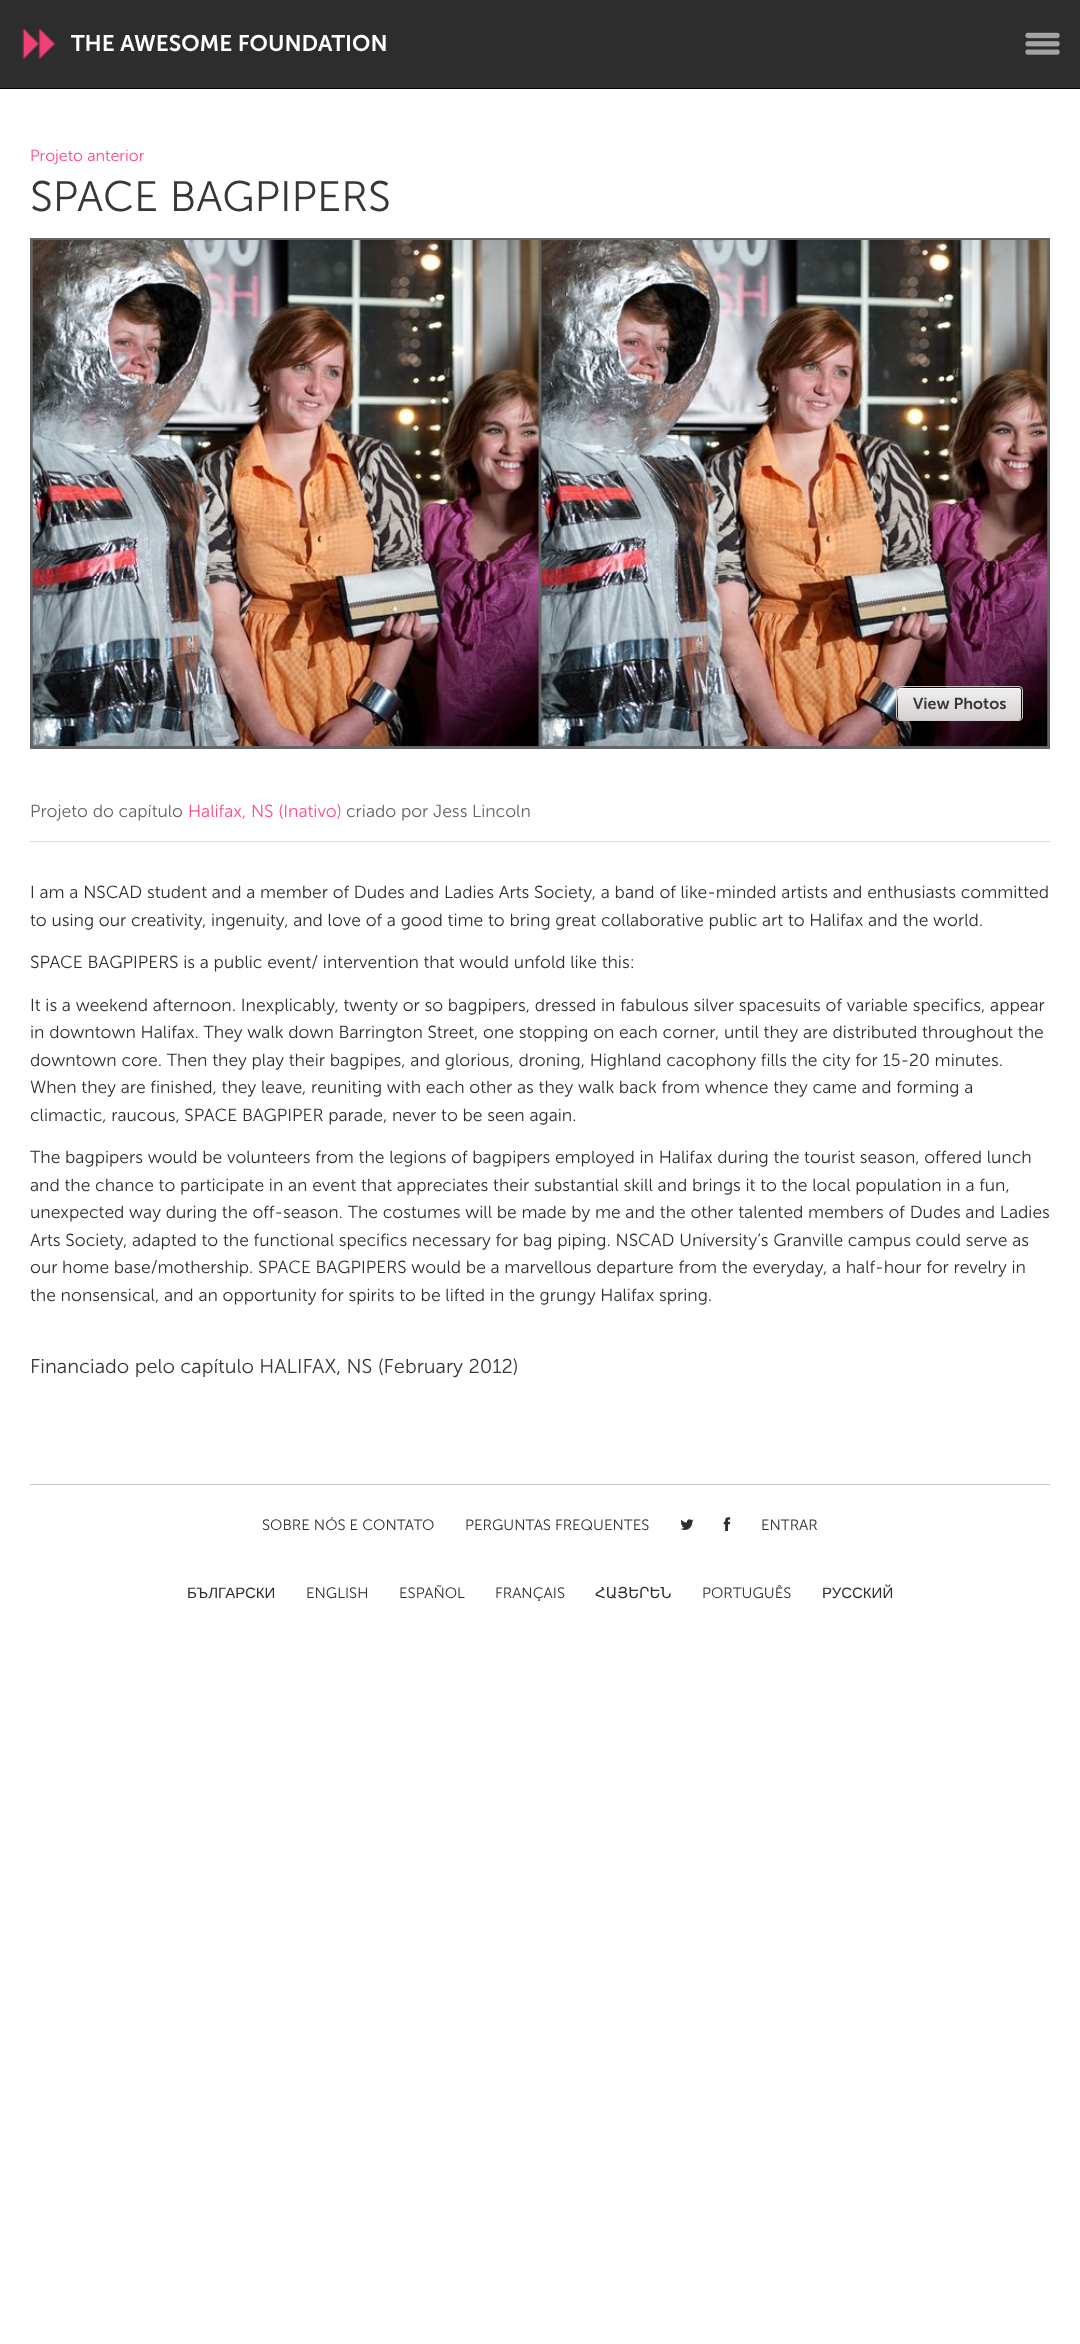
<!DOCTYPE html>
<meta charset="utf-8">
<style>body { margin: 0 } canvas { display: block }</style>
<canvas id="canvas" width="1080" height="2344"></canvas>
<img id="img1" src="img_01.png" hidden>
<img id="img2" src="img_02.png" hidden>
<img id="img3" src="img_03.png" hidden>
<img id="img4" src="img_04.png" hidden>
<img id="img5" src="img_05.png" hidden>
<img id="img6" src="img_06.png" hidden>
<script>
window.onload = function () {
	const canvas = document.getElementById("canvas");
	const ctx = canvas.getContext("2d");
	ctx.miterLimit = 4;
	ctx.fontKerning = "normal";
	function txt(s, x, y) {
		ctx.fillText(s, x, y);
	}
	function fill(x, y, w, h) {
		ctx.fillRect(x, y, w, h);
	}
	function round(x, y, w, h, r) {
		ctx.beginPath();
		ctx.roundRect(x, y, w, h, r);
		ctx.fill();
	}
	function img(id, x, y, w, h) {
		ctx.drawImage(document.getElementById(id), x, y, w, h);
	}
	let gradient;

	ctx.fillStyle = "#FFFFFF";
	fill(0, 0, 1080, 2344);
	ctx.fillStyle = "#2D2D2D";
	fill(0, 0, 1080, 88);
	ctx.fillStyle = "#000000";
	fill(0, 88, 1080, 1);
	img("img1", 22, 28, 34, 31);
	img("img2", 1025, 32, 35, 23);
	ctx.fillStyle = "#646464";
	fill(30, 238, 1020, 511);
	img("img3", 32, 240, 507, 507);
	img("img4", 541, 240, 507, 507);
	gradient = ctx.createLinearGradient(959, 688, 959, 720);
	gradient.addColorStop(0, "#F0F0F0");
	gradient.addColorStop(1, "#D8D0D0");
	ctx.fillStyle = gradient;
	round(898, 688, 123, 32, 2.5);
	ctx.fillStyle = "#FFFFFF";
	ctx.beginPath();
	ctx.moveTo(900, 689);
	ctx.lineTo(1019, 689);
	ctx.lineTo(1021, 690);
	ctx.lineTo(1021, 691);
	ctx.bezierCurveTo(1021, 689, 1020, 688, 1018, 688);
	ctx.lineTo(900, 688);
	ctx.bezierCurveTo(898, 689, 898, 690, 898, 691);
	ctx.bezierCurveTo(898, 690, 899, 689, 900, 689);
	ctx.closePath();
	ctx.fill();
	ctx.beginPath();
	ctx.roundRect(896.5, 686.5, 126, 34, 3.5);
	ctx.strokeStyle = "#D1C8C8";
	ctx.stroke();
	ctx.fillStyle = "#DCDCDC";
	fill(30, 841, 1020, 1);
	ctx.fillStyle = "#C8C8C8";
	fill(30, 1484, 1020, 1);
	img("img5", 680, 1519, 14, 11);
	img("img6", 723, 1517, 8, 15);
	ctx.font = "600 22.5px 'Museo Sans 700'";
	ctx.fillStyle = "#FFFFFF";
	txt("THE AWESOME FOUNDATION", 71, 51);
	ctx.font = "300 16px 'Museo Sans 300'";
	ctx.fillStyle = "#FF4B7E";
	txt("Projeto anterior", 30, 161);
	ctx.font = "300 42.5px 'Museo Sans 300'";
	ctx.fillStyle = "#373737";
	txt("SPACE BAGPIPERS", 30, 211);
	ctx.font = "600 16px 'Museo Sans 700'";
	txt("View Photos", 913, 709);
	ctx.font = "300 17.5px 'Museo Sans 300'";
	ctx.fillStyle = "#646464";
	txt("Projeto do capítulo", 30, 817);
	ctx.fillStyle = "#FF4B7E";
	txt("Halifax, NS (Inativo)", 188, 817);
	ctx.fillStyle = "#646464";
	txt("criado por Jess Lincoln", 346, 817);
	ctx.fillStyle = "#2E2E2E";
	txt("I am a NSCAD student and a member of Dudes and Ladies Arts Society, a band of like-minded artists and enthusiasts committed", 30, 898);
	txt("to using our creativity, ingenuity, and love of a good time to bring great collaborative public art to Halifax and the world.", 30, 926);
	txt("SPACE BAGPIPERS is a public event/ intervention that would unfold like this:", 30, 968);
	txt("It is a weekend afternoon. Inexplicably, twenty or so bagpipers, dressed in fabulous silver spacesuits of variable specifics, appear", 30, 1011);
	txt("in downtown Halifax. They walk down Barrington Street, one stopping on each corner, until they are distributed throughout the", 30, 1038);
	txt("downtown core. Then they play their bagpipes, and glorious, droning, Highland cacophony fills the city for 15-20 minutes.", 30, 1066);
	txt("When they are finished, they leave, reuniting with each other as they walk back from whence they came and forming a", 30, 1093);
	txt("climactic, raucous, SPACE BAGPIPER parade, never to be seen again.", 30, 1121);
	txt("The bagpipers would be volunteers from the legions of bagpipers employed in Halifax during the tourist season, offered lunch", 30, 1163);
	txt("and the chance to participate in an event that appreciates their substantial skill and brings it to the local population in a fun,", 30, 1191);
	txt("unexpected way during the off-season. The costumes will be made by me and the other talented members of Dudes and Ladies", 30, 1218);
	txt("Arts Society, adapted to the functional specifics necessary for bag piping. NSCAD University’s Granville campus could serve as", 30, 1246);
	txt("our home base/mothership. SPACE BAGPIPERS would be a marvellous departure from the everyday, a half-hour for revelry in", 30, 1273);
	txt("the nonsensical, and an opportunity for spirits to be lifted in the grungy Halifax spring.", 30, 1301);
	ctx.font = "300 20px 'Museo Sans 300'";
	ctx.fillStyle = "#373737";
	txt("Financiado pelo capítulo HALIFAX, NS (February 2012)", 30, 1373);
	ctx.font = "300 15px 'Museo Sans 300'";
	ctx.fillStyle = "#2E2E2E";
	txt("SOBRE NÓS E CONTATO", 262, 1530);
	txt("PERGUNTAS FREQUENTES", 465, 1530);
	txt("ENTRAR", 761, 1530);
	ctx.font = "15px Liberation Sans";
	txt("БЪЛГАРСКИ", 187, 1598);
	ctx.font = "300 15px 'Museo Sans 300'";
	txt("ENGLISH", 306, 1598);
	txt("ESPAÑOL", 399, 1598);
	txt("FRANÇAIS", 495, 1598);
	ctx.font = "15px DejaVu Sans";
	txt("ՀԱՅԵՐԵՆ", 595, 1598);
	ctx.font = "300 15px 'Museo Sans 300'";
	txt("PORTUGUÊS", 702, 1598);
	ctx.font = "15px Liberation Sans";
	txt("РУССКИЙ", 822, 1598);
};
</script>
